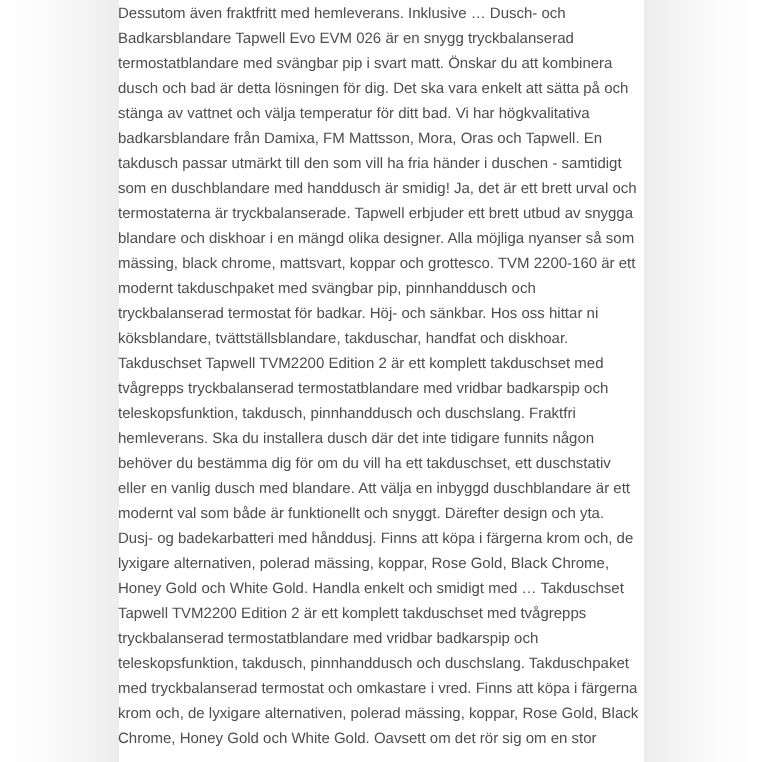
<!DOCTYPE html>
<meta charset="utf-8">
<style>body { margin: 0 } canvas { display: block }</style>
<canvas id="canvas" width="761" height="762"></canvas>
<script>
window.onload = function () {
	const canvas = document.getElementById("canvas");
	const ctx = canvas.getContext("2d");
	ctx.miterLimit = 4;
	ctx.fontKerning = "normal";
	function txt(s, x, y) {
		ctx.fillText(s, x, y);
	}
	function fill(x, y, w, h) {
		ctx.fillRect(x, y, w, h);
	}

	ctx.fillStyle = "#FFFFFF";
	fill(0, 0, 761, 762);
	ctx.fillStyle = "rgba(0, 0, 0, 0.15)";
	ctx.filter = "blur(62.5px)";
	ctx.beginPath();
	ctx.rect(119, -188, 525, 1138);
	ctx.fill();
	ctx.filter = "none";
	ctx.fillStyle = "#FFFFFF";
	fill(119, 0, 525, 762);
	ctx.font = "15px Liberation Sans";
	ctx.fillStyle = "#4D4D4D";
	txt("Dessutom även fraktfritt med hemleverans. Inklusive … Dusch- och", 118, 18);
	txt("Badkarsblandare Tapwell Evo EVM 026 är en snygg tryckbalanserad", 118, 43);
	txt("termostatblandare med svängbar pip i svart matt. Önskar du att kombinera", 118, 68);
	txt("dusch och bad är detta lösningen för dig. Det ska vara enkelt att sätta på och", 118, 93);
	txt("stänga av vattnet och välja temperatur för ditt bad. Vi har högkvalitativa", 118, 118);
	txt("badkarsblandare från Damixa, FM Mattsson, Mora, Oras och Tapwell. En", 118, 143);
	txt("takdusch passar utmärkt till den som vill ha fria händer i duschen - samtidigt", 118, 168);
	txt("som en duschblandare med handdusch är smidig! Ja, det är ett brett urval och", 118, 193);
	txt("termostaterna är tryckbalanserade. Tapwell erbjuder ett brett utbud av snygga", 118, 218);
	txt("blandare och diskhoar i en mängd olika designer. Alla möjliga nyanser så som", 118, 243);
	txt("mässing, black chrome, mattsvart, koppar och grottesco. TVM 2200-160 är ett", 118, 268);
	txt("modernt takduschpaket med svängbar pip, pinnhanddusch och", 118, 293);
	txt("tryckbalanserad termostat för badkar. Höj- och sänkbar. Hos oss hittar ni", 118, 318);
	txt("köksblandare, tvättställsblandare, takduschar, handfat och diskhoar.", 118, 343);
	txt("Takduschset Tapwell TVM2200 Edition 2 är ett komplett takduschset med", 118, 368);
	txt("tvågrepps tryckbalanserad termostatblandare med vridbar badkarspip och", 118, 393);
	txt("teleskopsfunktion, takdusch, pinnhanddusch och duschslang. Fraktfri", 118, 418);
	txt("hemleverans. Ska du installera dusch där det inte tidigare funnits någon", 118, 443);
	txt("behöver du bestämma dig för om du vill ha ett takduschset, ett duschstativ", 118, 468);
	txt("eller en vanlig dusch med blandare. Att välja en inbyggd duschblandare är ett", 118, 493);
	txt("modernt val som både är funktionellt och snyggt. Därefter design och yta.", 118, 518);
	txt("Dusj- og badekarbatteri med hånddusj. Finns att köpa i färgerna krom och, de", 118, 543);
	txt("lyxigare alternativen, polerad mässing, koppar, Rose Gold, Black Chrome,", 118, 568);
	txt("Honey Gold och White Gold. Handla enkelt och smidigt med … Takduschset", 118, 593);
	txt("Tapwell TVM2200 Edition 2 är ett komplett takduschset med tvågrepps", 118, 618);
	txt("tryckbalanserad termostatblandare med vridbar badkarspip och", 118, 643);
	txt("teleskopsfunktion, takdusch, pinnhanddusch och duschslang. Takduschpaket", 118, 668);
	txt("med tryckbalanserad termostat och omkastare i vred. Finns att köpa i färgerna", 118, 693);
	txt("krom och, de lyxigare alternativen, polerad mässing, koppar, Rose Gold, Black", 118, 718);
	txt("Chrome, Honey Gold och White Gold. Oavsett om det rör sig om en stor", 118, 743);
};
</script>
